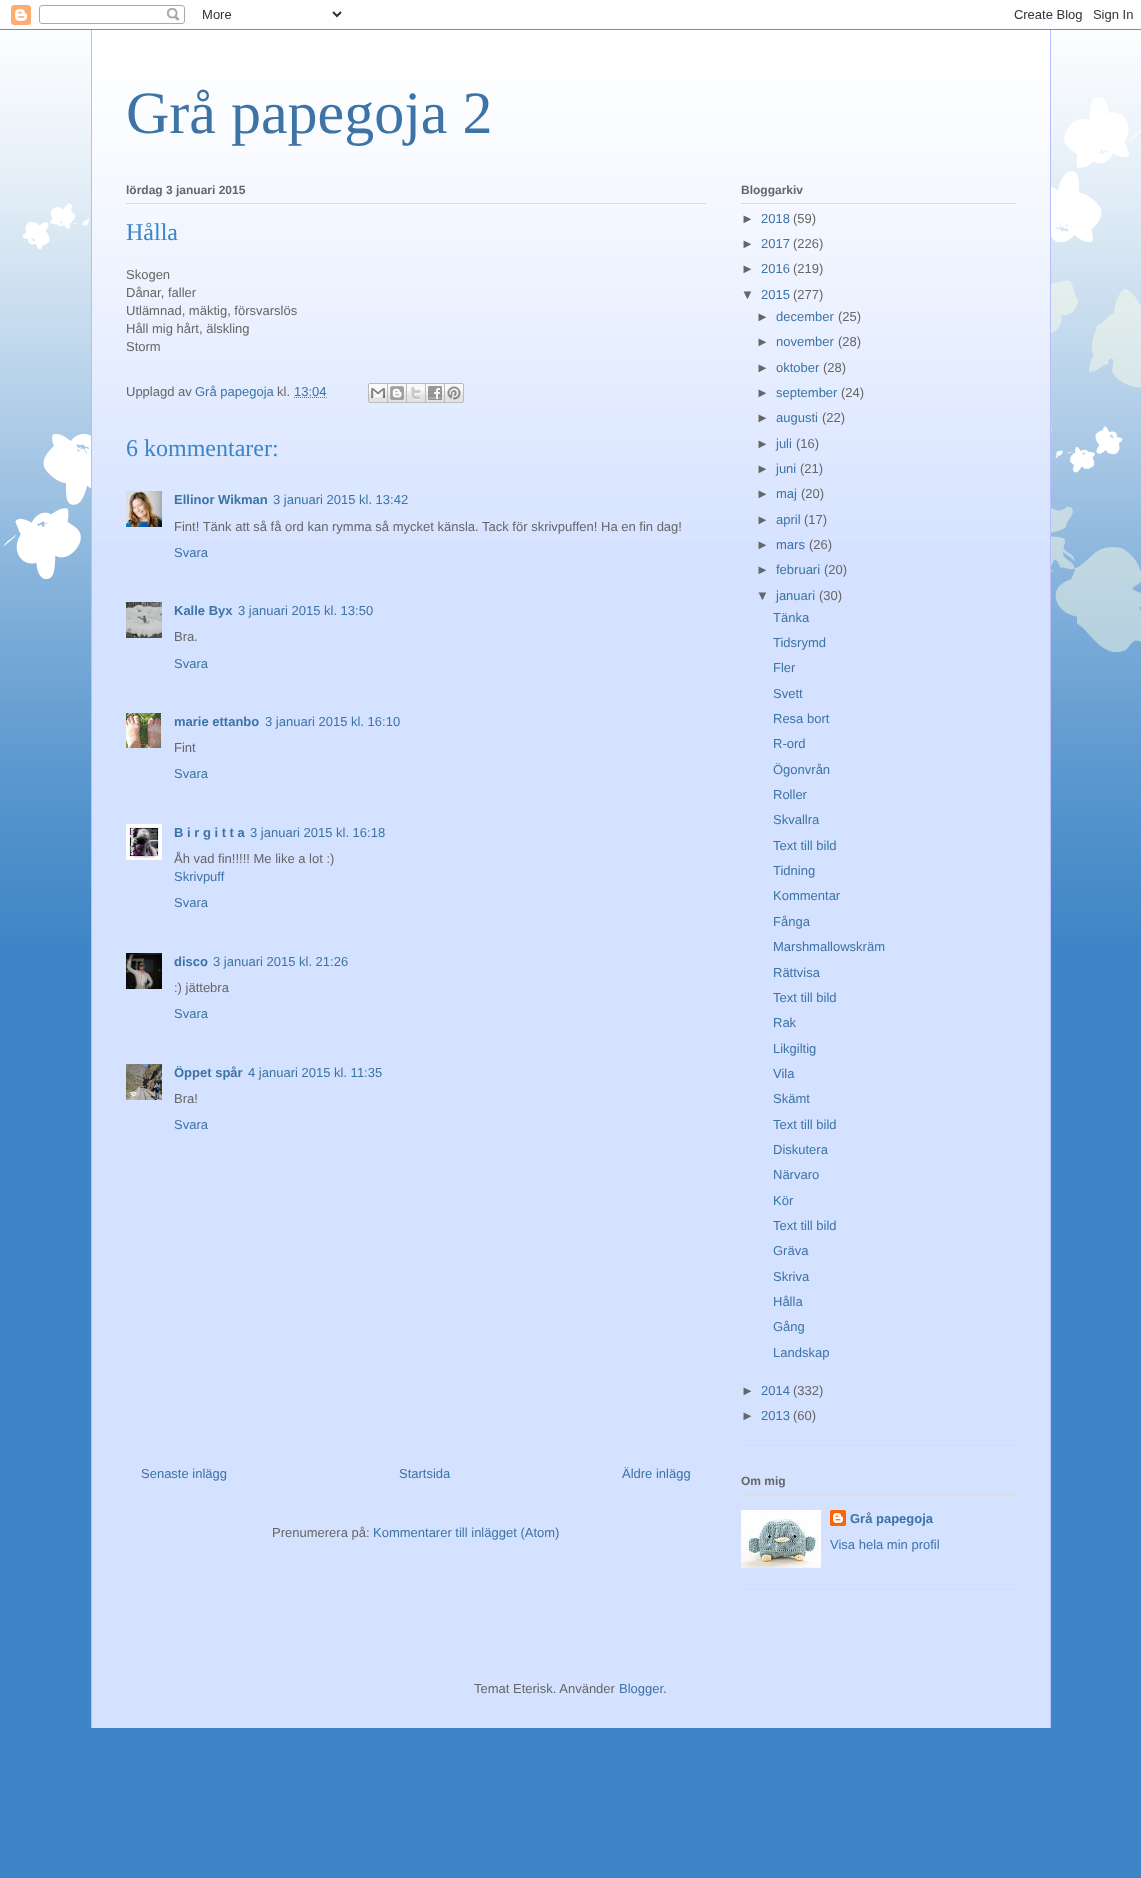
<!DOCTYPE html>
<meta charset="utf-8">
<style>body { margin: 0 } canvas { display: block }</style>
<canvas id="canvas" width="1141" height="1878"></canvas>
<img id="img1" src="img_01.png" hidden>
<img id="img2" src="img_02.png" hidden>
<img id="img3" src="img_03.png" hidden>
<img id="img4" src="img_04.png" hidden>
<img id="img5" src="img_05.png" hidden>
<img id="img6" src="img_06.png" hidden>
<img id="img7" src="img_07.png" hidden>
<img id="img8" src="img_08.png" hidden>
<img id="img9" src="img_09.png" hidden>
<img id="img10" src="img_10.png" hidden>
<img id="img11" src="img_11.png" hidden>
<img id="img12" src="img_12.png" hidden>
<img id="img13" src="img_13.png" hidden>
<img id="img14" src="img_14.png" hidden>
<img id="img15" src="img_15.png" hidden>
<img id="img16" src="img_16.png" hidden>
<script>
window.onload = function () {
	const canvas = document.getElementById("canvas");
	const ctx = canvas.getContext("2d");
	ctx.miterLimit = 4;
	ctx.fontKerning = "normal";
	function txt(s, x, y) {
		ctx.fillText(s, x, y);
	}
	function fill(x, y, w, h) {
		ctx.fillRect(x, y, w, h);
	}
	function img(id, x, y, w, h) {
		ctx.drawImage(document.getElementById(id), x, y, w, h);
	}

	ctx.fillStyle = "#3D85C6";
	fill(0, 0, 1141, 1878);
	img("img1", 0, 0, 1141, 937);
	img("img2", 0, 5, 1141, 25);
	ctx.fillStyle = "#D4E1FF";
	fill(92, 37, 958, 1691);
	img("img3", 92, 30, 958, 512);
	ctx.fillStyle = "#BBBBFF";
	fill(1050, 30, 1, 1698);
	fill(91, 30, 1, 1698);
	ctx.fillStyle = "#DBDBDB";
	fill(126, 203, 580, 1);
	ctx.beginPath();
	ctx.moveTo(294, 397.5);
	ctx.lineTo(326.5, 397.5);
	ctx.strokeStyle = "#3D74A5";
	ctx.setLineDash([1, 1]);
	ctx.stroke();
	img("img4", 368, 383, 20, 20);
	img("img5", 388, 383, 19, 20);
	img("img6", 407, 383, 19, 20);
	img("img7", 426, 383, 19, 20);
	img("img8", 445, 383, 19, 20);
	img("img9", 126, 491, 36, 36);
	img("img10", 126, 602, 36, 36);
	img("img11", 126, 713, 35, 35);
	img("img12", 126, 824, 36, 36);
	img("img13", 126, 953, 36, 36);
	img("img14", 126, 1064, 36, 36);
	fill(741, 1445, 275, 1);
	fill(741, 203, 275, 1);
	fill(741, 1589, 275, 1);
	fill(741, 1494, 275, 1);
	img("img15", 741, 1510, 80, 58);
	img("img16", 830, 1510, 16, 16);
	ctx.font = "60px Liberation Serif";
	ctx.fillStyle = "#3D74A5";
	txt("Grå papegoja 2", 126, 133);
	ctx.font = "bold 12px Liberation Sans";
	ctx.fillStyle = "#666666";
	txt("lördag 3 januari 2015", 126, 194);
	ctx.font = "24px Liberation Serif";
	ctx.fillStyle = "#3D85C6";
	txt("Hålla", 126, 240);
	ctx.font = "13px Liberation Sans";
	ctx.fillStyle = "#666666";
	txt("Skogen", 126, 279);
	txt("Dånar, faller", 126, 297);
	txt("Utlämnad, mäktig, försvarslös", 126, 315);
	txt("Håll mig hårt, älskling", 126, 333);
	txt("Storm", 126, 351);
	txt("Upplagd av", 126, 396);
	ctx.fillStyle = "#3D74A5";
	txt("Grå papegoja", 195, 396);
	ctx.fillStyle = "#666666";
	txt("kl.", 277, 396);
	ctx.fillStyle = "#3D74A5";
	txt("13:04", 294, 396);
	ctx.font = "24px Liberation Serif";
	ctx.fillStyle = "#3D85C6";
	txt("6 kommentarer:", 126, 456);
	ctx.font = "bold 13px Liberation Sans";
	ctx.fillStyle = "#3D74A5";
	txt("Ellinor Wikman", 174, 504);
	ctx.font = "13px Liberation Sans";
	txt("3 januari 2015 kl. 13:42", 273, 504);
	ctx.fillStyle = "#666666";
	txt("Fint! Tänk att så få ord kan rymma så mycket känsla. Tack för skrivpuffen! Ha en fin dag!", 174, 531);
	ctx.fillStyle = "#3D74A5";
	txt("Svara", 174, 557);
	ctx.font = "bold 13px Liberation Sans";
	txt("Kalle Byx", 174, 615);
	ctx.font = "13px Liberation Sans";
	txt("3 januari 2015 kl. 13:50", 238, 615);
	ctx.fillStyle = "#666666";
	txt("Bra.", 174, 641);
	ctx.fillStyle = "#3D74A5";
	txt("Svara", 174, 668);
	ctx.font = "bold 13px Liberation Sans";
	txt("marie ettanbo", 174, 726);
	ctx.font = "13px Liberation Sans";
	txt("3 januari 2015 kl. 16:10", 265, 726);
	ctx.fillStyle = "#666666";
	txt("Fint", 174, 752);
	ctx.fillStyle = "#3D74A5";
	txt("Svara", 174, 778);
	ctx.font = "bold 13px Liberation Sans";
	txt("B i r g i t t a", 174, 837);
	ctx.font = "13px Liberation Sans";
	txt("3 januari 2015 kl. 16:18", 250, 837);
	ctx.fillStyle = "#666666";
	txt("Åh vad fin!!!!! Me like a lot :)", 174, 863);
	ctx.fillStyle = "#3D74A5";
	txt("Skrivpuff", 174, 881);
	txt("Svara", 174, 907);
	ctx.font = "bold 13px Liberation Sans";
	txt("disco", 174, 966);
	ctx.font = "13px Liberation Sans";
	txt("3 januari 2015 kl. 21:26", 213, 966);
	ctx.fillStyle = "#666666";
	txt(":) jättebra", 174, 992);
	ctx.fillStyle = "#3D74A5";
	txt("Svara", 174, 1018);
	ctx.font = "bold 13px Liberation Sans";
	txt("Öppet spår", 174, 1077);
	ctx.font = "13px Liberation Sans";
	txt("4 januari 2015 kl. 11:35", 248, 1077);
	ctx.fillStyle = "#666666";
	txt("Bra!", 174, 1103);
	ctx.fillStyle = "#3D74A5";
	txt("Svara", 174, 1129);
	txt("Senaste inlägg", 141, 1478);
	txt("Startsida", 399, 1478);
	txt("Äldre inlägg", 622, 1478);
	ctx.fillStyle = "#666666";
	txt("Prenumerera på:", 272, 1537);
	ctx.fillStyle = "#3D74A5";
	txt("Kommentarer till inlägget (Atom)", 373, 1537);
	ctx.font = "bold 12px Liberation Sans";
	ctx.fillStyle = "#666666";
	txt("Bloggarkiv", 741, 194);
	ctx.font = "13px Liberation Sans";
	txt("►", 741, 223);
	ctx.fillStyle = "#3D74A5";
	txt("2018", 761, 223);
	ctx.fillStyle = "#666666";
	txt("(59)", 793, 223);
	txt("►", 741, 248);
	ctx.fillStyle = "#3D74A5";
	txt("2017", 761, 248);
	ctx.fillStyle = "#666666";
	txt("(226)", 793, 248);
	txt("►", 741, 273);
	ctx.fillStyle = "#3D74A5";
	txt("2016", 761, 273);
	ctx.fillStyle = "#666666";
	txt("(219)", 793, 273);
	txt("▼", 741, 299);
	ctx.fillStyle = "#3D74A5";
	txt("2015", 761, 299);
	ctx.fillStyle = "#666666";
	txt("(277)", 793, 299);
	txt("►", 756, 321);
	ctx.fillStyle = "#3D74A5";
	txt("december", 776, 321);
	ctx.fillStyle = "#666666";
	txt("(25)", 838, 321);
	txt("►", 756, 346);
	ctx.fillStyle = "#3D74A5";
	txt("november", 776, 346);
	ctx.fillStyle = "#666666";
	txt("(28)", 838, 346);
	txt("►", 756, 372);
	ctx.fillStyle = "#3D74A5";
	txt("oktober", 776, 372);
	ctx.fillStyle = "#666666";
	txt("(28)", 823, 372);
	txt("►", 756, 397);
	ctx.fillStyle = "#3D74A5";
	txt("september", 776, 397);
	ctx.fillStyle = "#666666";
	txt("(24)", 841, 397);
	txt("►", 756, 422);
	ctx.fillStyle = "#3D74A5";
	txt("augusti", 776, 422);
	ctx.fillStyle = "#666666";
	txt("(22)", 822, 422);
	txt("►", 756, 448);
	ctx.fillStyle = "#3D74A5";
	txt("juli", 776, 448);
	ctx.fillStyle = "#666666";
	txt("(16)", 796, 448);
	txt("►", 756, 473);
	ctx.fillStyle = "#3D74A5";
	txt("juni", 776, 473);
	ctx.fillStyle = "#666666";
	txt("(21)", 800, 473);
	txt("►", 756, 498);
	ctx.fillStyle = "#3D74A5";
	txt("maj", 776, 498);
	ctx.fillStyle = "#666666";
	txt("(20)", 801, 498);
	txt("►", 756, 524);
	ctx.fillStyle = "#3D74A5";
	txt("april", 776, 524);
	ctx.fillStyle = "#666666";
	txt("(17)", 804, 524);
	txt("►", 756, 549);
	ctx.fillStyle = "#3D74A5";
	txt("mars", 776, 549);
	ctx.fillStyle = "#666666";
	txt("(26)", 809, 549);
	txt("►", 756, 574);
	ctx.fillStyle = "#3D74A5";
	txt("februari", 776, 574);
	ctx.fillStyle = "#666666";
	txt("(20)", 824, 574);
	txt("▼", 756, 600);
	ctx.fillStyle = "#3D74A5";
	txt("januari", 776, 600);
	ctx.fillStyle = "#666666";
	txt("(30)", 819, 600);
	ctx.fillStyle = "#3D74A5";
	txt("Tänka", 773, 622);
	txt("Tidsrymd", 773, 647);
	txt("Fler", 773, 672);
	txt("Svett", 773, 698);
	txt("Resa bort", 773, 723);
	txt("R-ord", 773, 748);
	txt("Ögonvrån", 773, 774);
	txt("Roller", 773, 799);
	txt("Skvallra", 773, 824);
	txt("Text till bild", 773, 850);
	txt("Tidning", 773, 875);
	txt("Kommentar", 773, 900);
	txt("Fånga", 773, 926);
	txt("Marshmallowskräm", 773, 951);
	txt("Rättvisa", 773, 977);
	txt("Text till bild", 773, 1002);
	txt("Rak", 773, 1027);
	txt("Likgiltig", 773, 1053);
	txt("Vila", 773, 1078);
	txt("Skämt", 773, 1103);
	txt("Text till bild", 773, 1129);
	txt("Diskutera", 773, 1154);
	txt("Närvaro", 773, 1179);
	txt("Kör", 773, 1205);
	txt("Text till bild", 773, 1230);
	txt("Gräva", 773, 1255);
	txt("Skriva", 773, 1281);
	txt("Hålla", 773, 1306);
	txt("Gång", 773, 1331);
	txt("Landskap", 773, 1357);
	ctx.fillStyle = "#666666";
	txt("►", 741, 1395);
	ctx.fillStyle = "#3D74A5";
	txt("2014", 761, 1395);
	ctx.fillStyle = "#666666";
	txt("(332)", 793, 1395);
	txt("►", 741, 1420);
	ctx.fillStyle = "#3D74A5";
	txt("2013", 761, 1420);
	ctx.fillStyle = "#666666";
	txt("(60)", 793, 1420);
	ctx.font = "bold 12px Liberation Sans";
	txt("Om mig", 741, 1485);
	ctx.font = "bold 13px Liberation Sans";
	ctx.fillStyle = "#3D74A5";
	txt("Grå papegoja", 850, 1523);
	ctx.font = "13px Liberation Sans";
	txt("Visa hela min profil", 830, 1549);
	ctx.fillStyle = "#666666";
	txt("Temat Eterisk. Använder", 474, 1693);
	ctx.fillStyle = "#3D74A5";
	txt("Blogger", 619, 1693);
	ctx.fillStyle = "#666666";
	txt(".", 663, 1693);
};
</script>
